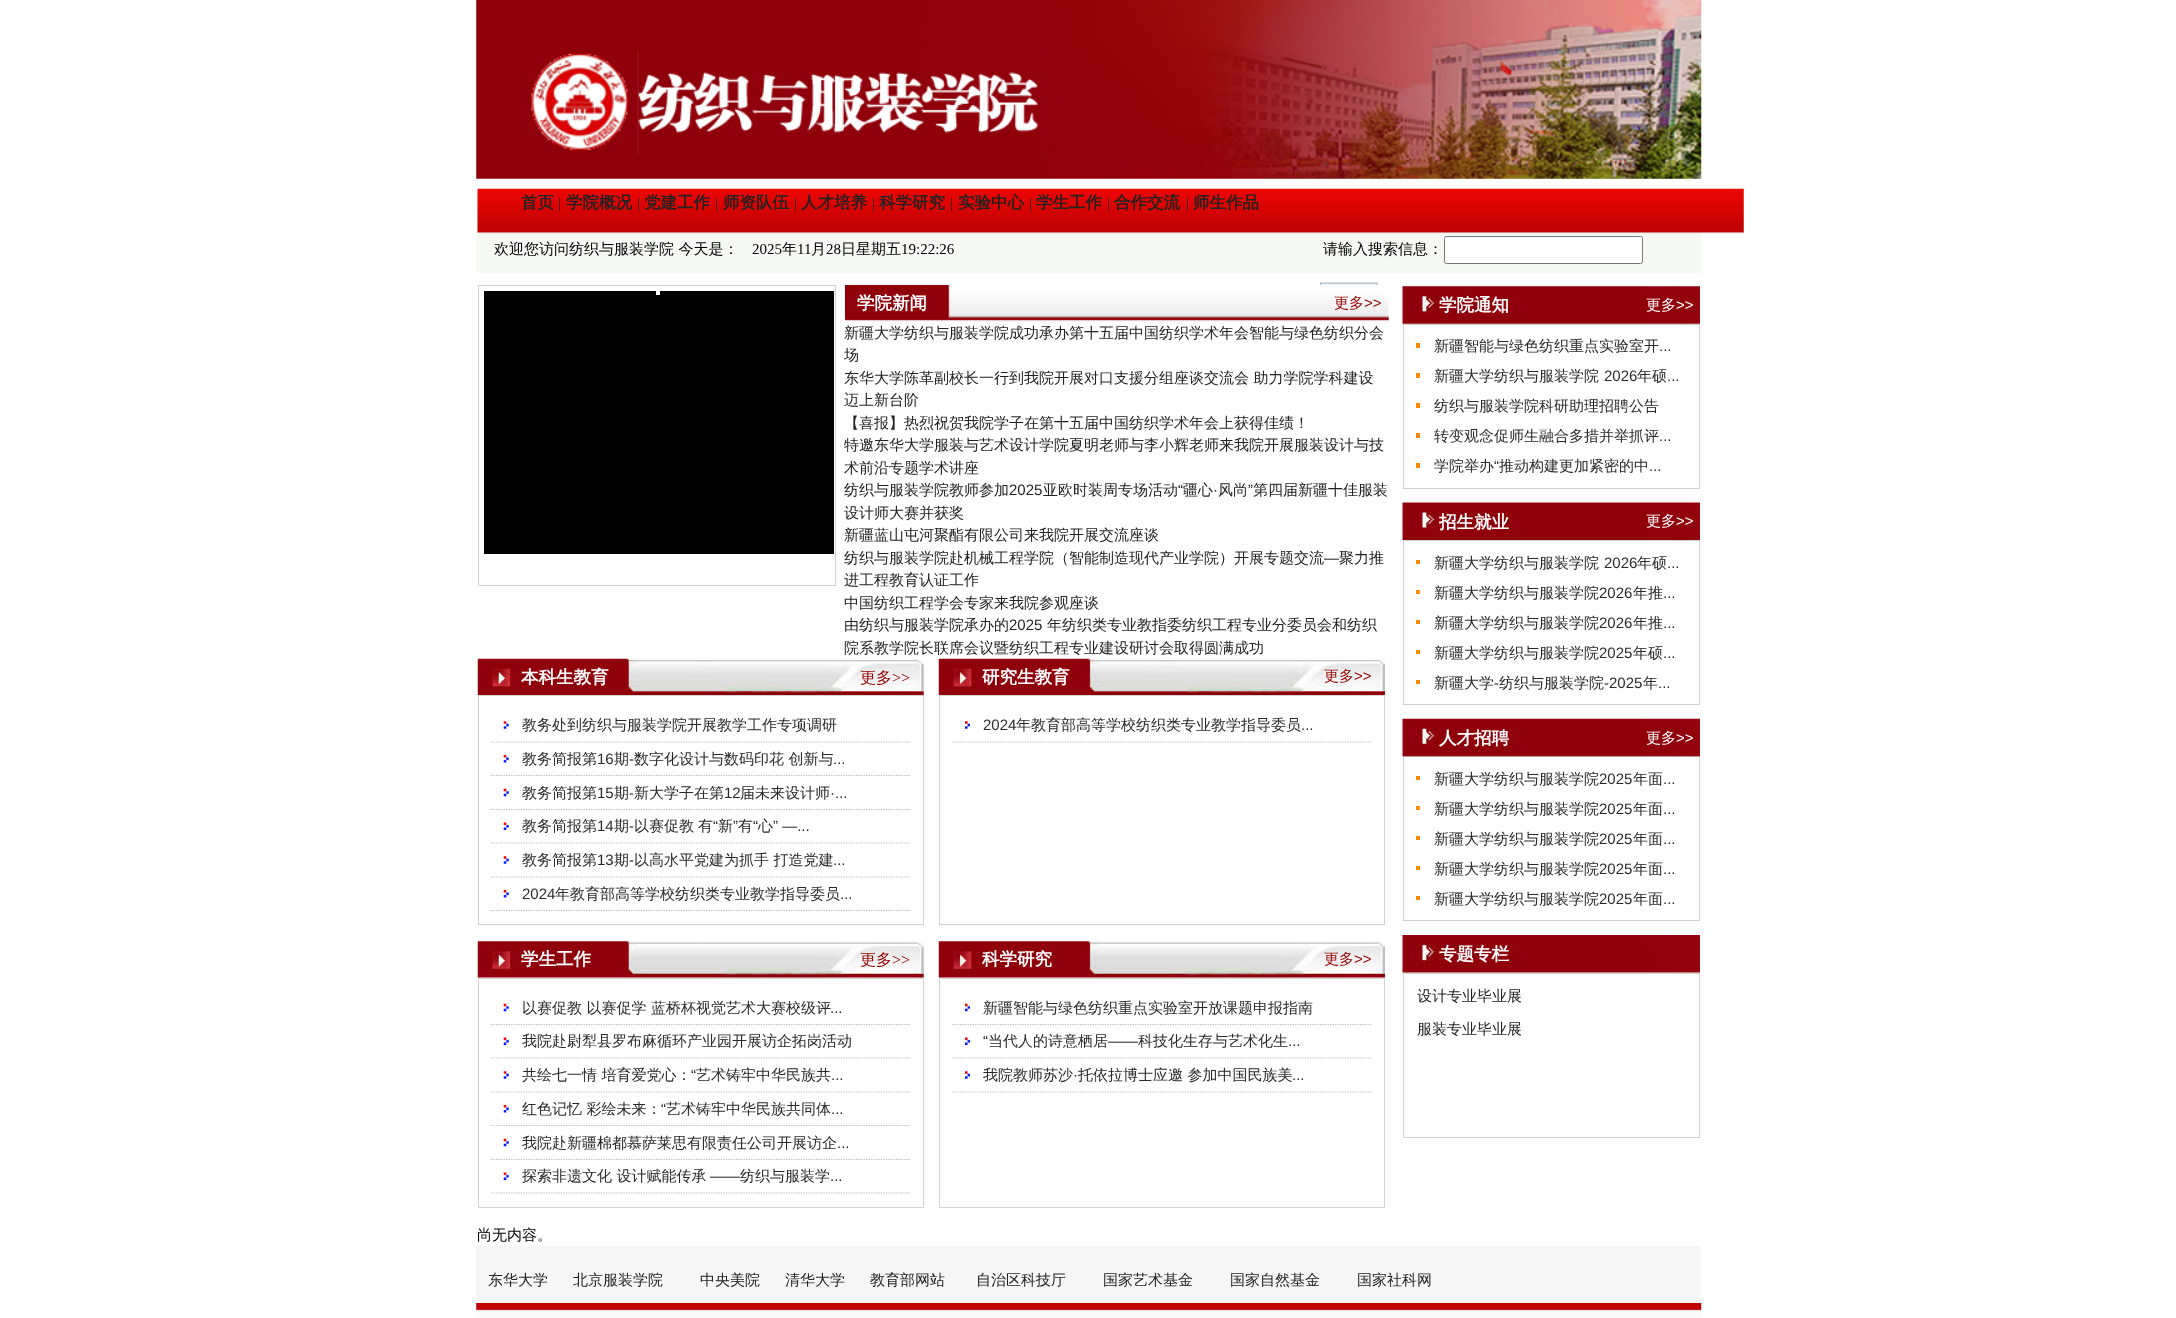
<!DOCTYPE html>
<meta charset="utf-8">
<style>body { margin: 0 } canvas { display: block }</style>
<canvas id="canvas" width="2176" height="1318"></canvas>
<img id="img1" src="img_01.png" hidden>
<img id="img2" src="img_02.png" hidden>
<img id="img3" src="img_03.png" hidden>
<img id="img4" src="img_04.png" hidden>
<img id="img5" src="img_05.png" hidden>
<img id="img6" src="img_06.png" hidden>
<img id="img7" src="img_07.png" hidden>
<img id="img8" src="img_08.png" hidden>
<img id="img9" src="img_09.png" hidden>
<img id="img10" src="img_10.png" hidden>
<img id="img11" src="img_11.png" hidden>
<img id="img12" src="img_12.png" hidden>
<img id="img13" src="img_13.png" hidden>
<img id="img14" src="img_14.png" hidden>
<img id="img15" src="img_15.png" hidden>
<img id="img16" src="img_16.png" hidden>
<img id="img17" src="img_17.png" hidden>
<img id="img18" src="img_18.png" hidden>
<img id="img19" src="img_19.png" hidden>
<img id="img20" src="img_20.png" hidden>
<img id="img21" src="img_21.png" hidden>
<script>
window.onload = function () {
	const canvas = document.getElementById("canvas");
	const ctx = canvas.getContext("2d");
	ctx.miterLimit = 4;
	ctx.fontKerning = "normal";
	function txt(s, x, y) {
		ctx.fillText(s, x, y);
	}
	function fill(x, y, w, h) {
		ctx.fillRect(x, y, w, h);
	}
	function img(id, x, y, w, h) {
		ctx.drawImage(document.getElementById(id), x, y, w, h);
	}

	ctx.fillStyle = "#FFFFFF";
	fill(0, 0, 2176, 1318);
	img("img1", 476, 0, 1226, 179);
	ctx.fillStyle = "#FBFCFD";
	fill(476, 224, 2, 1);
	img("img2", 531, 50, 507, 104);
	ctx.fillStyle = "#F6F8F3";
	fill(476, 226, 1225, 47);
	img("img3", 477, 188, 1267, 45);
	ctx.fillStyle = "#FFFFFF";
	ctx.beginPath();
	ctx.roundRect(1444.5, 236.5, 198, 27, 2);
	ctx.fill();
	ctx.strokeStyle = "#767676";
	ctx.stroke();
	img("img4", 1320, 282, 58, 3);
	ctx.strokeStyle = "#D1D1D1";
	ctx.strokeRect(478.5, 285.5, 357, 300);
	ctx.fillStyle = "#000000";
	fill(484, 291, 350, 263);
	ctx.fillStyle = "#FFFFFF";
	fill(656, 291, 4, 4);
	img("img5", 845, 285, 544, 37);
	img("img6", 477, 658, 447, 37);
	ctx.strokeStyle = "#D3D3D3";
	ctx.strokeRect(478.5, 695.5, 445, 229);
	img("img7", 503, 721, 6, 8);
	ctx.beginPath();
	ctx.moveTo(491, 742);
	ctx.lineTo(910, 742);
	ctx.strokeStyle = "#B7B7B7";
	ctx.lineWidth = 1.2;
	ctx.setLineDash([1.25, 1.25]);
	ctx.stroke();
	img("img8", 503, 755, 6, 8);
	ctx.beginPath();
	ctx.moveTo(491, 775.5);
	ctx.lineTo(910, 775.5);
	ctx.stroke();
	img("img9", 503, 788, 6, 9);
	ctx.beginPath();
	ctx.moveTo(491, 809.5);
	ctx.lineTo(910, 809.5);
	ctx.stroke();
	img("img10", 503, 822, 6, 8);
	ctx.beginPath();
	ctx.moveTo(491, 843);
	ctx.lineTo(910, 843);
	ctx.stroke();
	img("img7", 503, 856, 6, 8);
	ctx.beginPath();
	ctx.moveTo(491, 877);
	ctx.lineTo(910, 877);
	ctx.stroke();
	img("img8", 503, 890, 6, 8);
	ctx.beginPath();
	ctx.moveTo(491, 910.5);
	ctx.lineTo(910, 910.5);
	ctx.stroke();
	img("img11", 938, 658, 447, 37);
	ctx.strokeStyle = "#D3D3D3";
	ctx.lineWidth = 1;
	ctx.setLineDash([]);
	ctx.strokeRect(939.5, 695.5, 445, 229);
	img("img12", 965, 721, 5, 8);
	ctx.beginPath();
	ctx.moveTo(952.5, 742);
	ctx.lineTo(1371, 742);
	ctx.strokeStyle = "#B7B7B7";
	ctx.lineWidth = 1.2;
	ctx.setLineDash([1.25, 1.25]);
	ctx.stroke();
	img("img13", 477, 941, 447, 37);
	ctx.strokeStyle = "#D3D3D3";
	ctx.lineWidth = 1;
	ctx.setLineDash([]);
	ctx.strokeRect(478.5, 978.5, 445, 229);
	img("img9", 503, 1003, 6, 9);
	ctx.beginPath();
	ctx.moveTo(491, 1024.5);
	ctx.lineTo(910, 1024.5);
	ctx.strokeStyle = "#B7B7B7";
	ctx.lineWidth = 1.2;
	ctx.setLineDash([1.25, 1.25]);
	ctx.stroke();
	img("img10", 503, 1037, 6, 8);
	ctx.beginPath();
	ctx.moveTo(491, 1058);
	ctx.lineTo(910, 1058);
	ctx.stroke();
	img("img7", 503, 1071, 6, 8);
	ctx.beginPath();
	ctx.moveTo(491, 1092);
	ctx.lineTo(910, 1092);
	ctx.stroke();
	img("img8", 503, 1105, 6, 8);
	ctx.beginPath();
	ctx.moveTo(491, 1125.5);
	ctx.lineTo(910, 1125.5);
	ctx.stroke();
	img("img9", 503, 1138, 6, 9);
	ctx.beginPath();
	ctx.moveTo(491, 1159.5);
	ctx.lineTo(910, 1159.5);
	ctx.stroke();
	img("img10", 503, 1172, 6, 8);
	ctx.beginPath();
	ctx.moveTo(491, 1193);
	ctx.lineTo(910, 1193);
	ctx.stroke();
	img("img14", 938, 941, 447, 37);
	ctx.strokeStyle = "#D3D3D3";
	ctx.lineWidth = 1;
	ctx.setLineDash([]);
	ctx.strokeRect(939.5, 978.5, 445, 229);
	img("img15", 965, 1003, 5, 9);
	ctx.beginPath();
	ctx.moveTo(952.5, 1024.5);
	ctx.lineTo(1371, 1024.5);
	ctx.strokeStyle = "#B7B7B7";
	ctx.lineWidth = 1.2;
	ctx.setLineDash([1.25, 1.25]);
	ctx.stroke();
	img("img16", 965, 1037, 5, 8);
	ctx.beginPath();
	ctx.moveTo(952.5, 1058);
	ctx.lineTo(1371, 1058);
	ctx.stroke();
	img("img12", 965, 1071, 5, 8);
	ctx.beginPath();
	ctx.moveTo(952.5, 1092);
	ctx.lineTo(1371, 1092);
	ctx.stroke();
	img("img17", 1402, 286, 298, 38);
	ctx.strokeStyle = "#D1D1D1";
	ctx.lineWidth = 1;
	ctx.setLineDash([]);
	ctx.strokeRect(1403.5, 324.5, 296, 164);
	ctx.fillStyle = "#FF8A00";
	fill(1416, 343, 4, 5);
	fill(1416, 373, 4, 5);
	fill(1416, 403, 4, 5);
	fill(1416, 433, 4, 5);
	fill(1416, 463, 4, 5);
	img("img18", 1402, 502, 298, 38);
	ctx.strokeRect(1403.5, 540.5, 296, 164);
	fill(1416, 560, 4, 4);
	fill(1416, 590, 4, 4);
	fill(1416, 620, 4, 4);
	fill(1416, 650, 4, 4);
	fill(1416, 680, 4, 4);
	ctx.strokeRect(1403.5, 756.5, 296, 164);
	img("img19", 1402, 718, 298, 39);
	fill(1416, 776, 4, 4);
	fill(1416, 806, 4, 4);
	fill(1416, 836, 4, 4);
	fill(1416, 866, 4, 4);
	fill(1416, 896, 4, 4);
	img("img20", 1402, 935, 298, 38);
	ctx.strokeRect(1403.5, 973.5, 296, 164);
	img("img21", 476, 1302, 1226, 16);
	ctx.fillStyle = "#F7F6F6";
	fill(476, 1246, 1225, 57);
	ctx.font = "bold 16.5px WenQuanYi Zen Hei";
	ctx.fillStyle = "#222222";
	txt("首页", 521, 208);
	ctx.font = "15px Liberation Serif";
	txt("|", 558, 208);
	ctx.font = "bold 16.5px WenQuanYi Zen Hei";
	txt("学院概况", 566, 208);
	ctx.font = "15px Liberation Serif";
	txt("|", 637, 208);
	ctx.font = "bold 16.5px WenQuanYi Zen Hei";
	txt("党建工作", 644, 208);
	ctx.font = "15px Liberation Serif";
	txt("|", 715, 208);
	ctx.font = "bold 16.5px WenQuanYi Zen Hei";
	txt("师资队伍", 723, 208);
	ctx.font = "15px Liberation Serif";
	txt("|", 794, 208);
	ctx.font = "bold 16.5px WenQuanYi Zen Hei";
	txt("人才培养", 801, 208);
	ctx.font = "15px Liberation Serif";
	txt("|", 872, 208);
	ctx.font = "bold 16.5px WenQuanYi Zen Hei";
	txt("科学研究", 879, 208);
	ctx.font = "15px Liberation Serif";
	txt("|", 950, 208);
	ctx.font = "bold 16.5px WenQuanYi Zen Hei";
	txt("实验中心", 958, 208);
	ctx.font = "15px Liberation Serif";
	txt("|", 1029, 208);
	ctx.font = "bold 16.5px WenQuanYi Zen Hei";
	txt("学生工作", 1036, 208);
	ctx.font = "15px Liberation Serif";
	txt("|", 1107, 208);
	ctx.font = "bold 16.5px WenQuanYi Zen Hei";
	txt("合作交流", 1114, 208);
	ctx.font = "15px Liberation Serif";
	txt("|", 1186, 208);
	ctx.font = "bold 16.5px WenQuanYi Zen Hei";
	txt("师生作品", 1193, 208);
	ctx.font = "500 15px WenQuanYi Zen Hei";
	ctx.fillStyle = "#000000";
	txt("欢迎您访问纺织与服装学院 今天是：", 494, 254);
	ctx.font = "15px Liberation Serif";
	txt("2025", 752, 254);
	ctx.font = "500 15px WenQuanYi Zen Hei";
	txt("年", 782, 254);
	ctx.font = "15px Liberation Serif";
	txt("11", 797, 254);
	ctx.font = "500 15px WenQuanYi Zen Hei";
	txt("月", 811, 254);
	ctx.font = "15px Liberation Serif";
	txt("28", 826, 254);
	ctx.font = "500 15px WenQuanYi Zen Hei";
	txt("日星期五", 841, 254);
	ctx.font = "15px Liberation Serif";
	txt("19:22:26", 901, 254);
	ctx.font = "500 15px WenQuanYi Zen Hei";
	txt("请输入搜索信息：", 1323, 254);
	ctx.font = "bold 17.5px WenQuanYi Zen Hei";
	ctx.fillStyle = "#FFFFFF";
	txt("学院新闻", 857, 309);
	ctx.font = "500 15px WenQuanYi Zen Hei";
	ctx.fillStyle = "#940505";
	txt("更多", 1334, 308);
	ctx.font = "15px Liberation Sans";
	txt(">>", 1364, 308);
	ctx.font = "500 15px WenQuanYi Zen Hei";
	ctx.fillStyle = "#222222";
	txt("新疆大学纺织与服装学院成功承办第十五届中国纺织学术年会智能与绿色纺织分会", 844, 338);
	txt("场", 844, 360);
	txt("东华大学陈革副校长一行到我院开展对口支援分组座谈交流会 助力学院学科建设", 844, 383);
	txt("迈上新台阶", 844, 405);
	txt("【喜报】热烈祝贺我院学子在第十五届中国纺织学术年会上获得佳绩！", 844, 428);
	txt("特邀东华大学服装与艺术设计学院夏明老师与李小辉老师来我院开展服装设计与技", 844, 450);
	txt("术前沿专题学术讲座", 844, 473);
	txt("纺织与服装学院教师参加", 844, 495);
	ctx.font = "15px Liberation Sans";
	txt("2025", 1009, 495);
	ctx.font = "500 15px WenQuanYi Zen Hei";
	txt("亚欧时装周专场活动", 1043, 495);
	ctx.font = "15px Liberation Sans";
	txt("“", 1178, 495);
	ctx.font = "500 15px WenQuanYi Zen Hei";
	txt("疆心", 1183, 495);
	txt("风尚", 1218, 495);
	ctx.font = "15px Liberation Sans";
	txt("”", 1248, 495);
	ctx.font = "500 15px WenQuanYi Zen Hei";
	txt("第四届新疆十佳服装", 1253, 495);
	ctx.font = "15px Liberation Sans";
	txt("·", 1213, 495);
	ctx.font = "500 15px WenQuanYi Zen Hei";
	txt("设计师大赛并获奖", 844, 518);
	txt("新疆蓝山屯河聚酯有限公司来我院开展交流座谈", 844, 540);
	txt("纺织与服装学院赴机械工程学院（智能制造现代产业学院）开展专题交流", 844, 563);
	ctx.font = "15px Liberation Sans";
	txt("—", 1324, 563);
	ctx.font = "500 15px WenQuanYi Zen Hei";
	txt("聚力推", 1339, 563);
	txt("进工程教育认证工作", 844, 585);
	txt("中国纺织工程学会专家来我院参观座谈", 844, 608);
	txt("由纺织与服装学院承办的", 844, 630);
	ctx.font = "15px Liberation Sans";
	txt("2025", 1009, 630);
	ctx.font = "500 15px WenQuanYi Zen Hei";
	txt("年纺织类专业教指委纺织工程专业分委员会和纺织", 1047, 630);
	txt("院系教学院长联席会议暨纺织工程专业建设研讨会取得圆满成功", 844, 653);
	ctx.font = "bold 17.5px WenQuanYi Zen Hei";
	ctx.fillStyle = "#FFFFFF";
	txt("本科生教育", 521, 683);
	ctx.font = "500 16px WenQuanYi Zen Hei";
	ctx.fillStyle = "#940505";
	txt("更多", 860, 683);
	ctx.font = "16px Liberation Serif";
	txt(">>", 892, 683);
	ctx.font = "500 15px WenQuanYi Zen Hei";
	ctx.fillStyle = "#292929";
	txt("教务处到纺织与服装学院开展教学工作专项调研", 522, 730);
	txt("教务简报第", 522, 764);
	ctx.font = "15px Liberation Sans";
	txt("16", 597, 764);
	ctx.font = "500 15px WenQuanYi Zen Hei";
	txt("期", 614, 764);
	ctx.font = "15px Liberation Sans";
	txt("-", 629, 764);
	ctx.font = "500 15px WenQuanYi Zen Hei";
	txt("数字化设计与数码印花 创新与", 634, 764);
	ctx.font = "15px Liberation Sans";
	txt("...", 833, 764);
	ctx.font = "500 15px WenQuanYi Zen Hei";
	txt("教务简报第", 522, 798);
	ctx.font = "15px Liberation Sans";
	txt("15", 597, 798);
	ctx.font = "500 15px WenQuanYi Zen Hei";
	txt("期", 614, 798);
	ctx.font = "15px Liberation Sans";
	txt("-", 629, 798);
	ctx.font = "500 15px WenQuanYi Zen Hei";
	txt("新大学子在第", 634, 798);
	ctx.font = "15px Liberation Sans";
	txt("12", 724, 798);
	ctx.font = "500 15px WenQuanYi Zen Hei";
	txt("届未来设计师", 740, 798);
	ctx.font = "15px Liberation Sans";
	txt("·...", 830, 798);
	ctx.font = "500 15px WenQuanYi Zen Hei";
	txt("教务简报第", 522, 831);
	ctx.font = "15px Liberation Sans";
	txt("14", 597, 831);
	ctx.font = "500 15px WenQuanYi Zen Hei";
	txt("期", 614, 831);
	ctx.font = "15px Liberation Sans";
	txt("-", 629, 831);
	ctx.font = "500 15px WenQuanYi Zen Hei";
	txt("以赛促教", 634, 831);
	txt("有", 698, 831);
	ctx.font = "15px Liberation Sans";
	txt("“", 713, 831);
	ctx.font = "500 15px WenQuanYi Zen Hei";
	txt("新", 718, 831);
	ctx.font = "15px Liberation Sans";
	txt("”", 733, 831);
	ctx.font = "500 15px WenQuanYi Zen Hei";
	txt("有", 738, 831);
	ctx.font = "15px Liberation Sans";
	txt("“", 753, 831);
	ctx.font = "500 15px WenQuanYi Zen Hei";
	txt("心", 758, 831);
	ctx.font = "15px Liberation Sans";
	txt("” —...", 773, 831);
	ctx.font = "500 15px WenQuanYi Zen Hei";
	txt("教务简报第", 522, 865);
	ctx.font = "15px Liberation Sans";
	txt("13", 597, 865);
	ctx.font = "500 15px WenQuanYi Zen Hei";
	txt("期", 614, 865);
	ctx.font = "15px Liberation Sans";
	txt("-", 629, 865);
	ctx.font = "500 15px WenQuanYi Zen Hei";
	txt("以高水平党建为抓手 打造党建", 634, 865);
	ctx.font = "15px Liberation Sans";
	txt("...", 833, 865);
	txt("2024", 522, 899);
	ctx.font = "500 15px WenQuanYi Zen Hei";
	txt("年教育部高等学校纺织类专业教学指导委员", 555, 899);
	ctx.font = "15px Liberation Sans";
	txt("...", 840, 899);
	ctx.font = "bold 17.5px WenQuanYi Zen Hei";
	ctx.fillStyle = "#FFFFFF";
	txt("研究生教育", 982, 683);
	ctx.font = "500 15px WenQuanYi Zen Hei";
	ctx.fillStyle = "#940505";
	txt("更多", 1324, 681);
	ctx.font = "15px Liberation Sans";
	txt(">>", 1354, 681);
	ctx.fillStyle = "#292929";
	txt("2024", 983, 730);
	ctx.font = "500 15px WenQuanYi Zen Hei";
	txt("年教育部高等学校纺织类专业教学指导委员", 1016, 730);
	ctx.font = "15px Liberation Sans";
	txt("...", 1301, 730);
	ctx.font = "bold 17.5px WenQuanYi Zen Hei";
	ctx.fillStyle = "#FFFFFF";
	txt("学生工作", 521, 965);
	ctx.font = "500 16px WenQuanYi Zen Hei";
	ctx.fillStyle = "#940505";
	txt("更多", 860, 965);
	ctx.font = "16px Liberation Serif";
	txt(">>", 892, 965);
	ctx.font = "500 15px WenQuanYi Zen Hei";
	ctx.fillStyle = "#292929";
	txt("以赛促教 以赛促学 蓝桥杯视觉艺术大赛校级评", 522, 1013);
	ctx.font = "15px Liberation Sans";
	txt("...", 830, 1013);
	ctx.font = "500 15px WenQuanYi Zen Hei";
	txt("我院赴尉犁县罗布麻循环产业园开展访企拓岗活动", 522, 1046);
	txt("共绘七一情 培育爱党心：", 522, 1080);
	ctx.font = "15px Liberation Sans";
	txt("“", 691, 1080);
	ctx.font = "500 15px WenQuanYi Zen Hei";
	txt("艺术铸牢中华民族共", 696, 1080);
	ctx.font = "15px Liberation Sans";
	txt("...", 831, 1080);
	ctx.font = "500 15px WenQuanYi Zen Hei";
	txt("红色记忆 彩绘未来：", 522, 1114);
	ctx.font = "15px Liberation Sans";
	txt("“", 661, 1114);
	ctx.font = "500 15px WenQuanYi Zen Hei";
	txt("艺术铸牢中华民族共同体", 666, 1114);
	ctx.font = "15px Liberation Sans";
	txt("...", 831, 1114);
	ctx.font = "500 15px WenQuanYi Zen Hei";
	txt("我院赴新疆棉都慕萨莱思有限责任公司开展访企", 522, 1148);
	ctx.font = "15px Liberation Sans";
	txt("...", 837, 1148);
	ctx.font = "500 15px WenQuanYi Zen Hei";
	txt("探索非遗文化 设计赋能传承", 522, 1181);
	ctx.font = "15px Liberation Sans";
	txt("——", 710, 1181);
	ctx.font = "500 15px WenQuanYi Zen Hei";
	txt("纺织与服装学", 740, 1181);
	ctx.font = "15px Liberation Sans";
	txt("...", 830, 1181);
	ctx.font = "bold 17.5px WenQuanYi Zen Hei";
	ctx.fillStyle = "#FFFFFF";
	txt("科学研究", 982, 965);
	ctx.font = "500 15px WenQuanYi Zen Hei";
	ctx.fillStyle = "#940505";
	txt("更多", 1324, 964);
	ctx.font = "15px Liberation Sans";
	txt(">>", 1354, 964);
	ctx.font = "500 15px WenQuanYi Zen Hei";
	ctx.fillStyle = "#292929";
	txt("新疆智能与绿色纺织重点实验室开放课题申报指南", 983, 1013);
	ctx.font = "15px Liberation Sans";
	txt("“", 983, 1046);
	ctx.font = "500 15px WenQuanYi Zen Hei";
	txt("当代人的诗意栖居", 988, 1046);
	ctx.font = "15px Liberation Sans";
	txt("——", 1108, 1046);
	ctx.font = "500 15px WenQuanYi Zen Hei";
	txt("科技化生存与艺术化生", 1138, 1046);
	ctx.font = "15px Liberation Sans";
	txt("...", 1288, 1046);
	ctx.font = "500 15px WenQuanYi Zen Hei";
	txt("我院教师苏沙", 983, 1080);
	ctx.font = "15px Liberation Sans";
	txt("·", 1073, 1080);
	ctx.font = "500 15px WenQuanYi Zen Hei";
	txt("托依拉博士应邀 参加中国民族美", 1078, 1080);
	ctx.font = "15px Liberation Sans";
	txt("...", 1292, 1080);
	ctx.font = "bold 17.5px WenQuanYi Zen Hei";
	ctx.fillStyle = "#FFFFFF";
	txt("学院通知", 1439, 311);
	ctx.font = "500 15px WenQuanYi Zen Hei";
	txt("更多", 1646, 310);
	ctx.font = "15px Liberation Sans";
	txt(">>", 1676, 310);
	ctx.font = "500 15px WenQuanYi Zen Hei";
	ctx.fillStyle = "#292929";
	txt("新疆智能与绿色纺织重点实验室开", 1434, 351);
	ctx.font = "15px Liberation Sans";
	txt("...", 1659, 351);
	ctx.font = "500 15px WenQuanYi Zen Hei";
	txt("新疆大学纺织与服装学院", 1434, 381);
	ctx.font = "15px Liberation Sans";
	txt("2026", 1604, 381);
	ctx.font = "500 15px WenQuanYi Zen Hei";
	txt("年硕", 1637, 381);
	ctx.font = "15px Liberation Sans";
	txt("...", 1667, 381);
	ctx.font = "500 15px WenQuanYi Zen Hei";
	txt("纺织与服装学院科研助理招聘公告", 1434, 411);
	txt("转变观念促师生融合多措并举抓评", 1434, 441);
	ctx.font = "15px Liberation Sans";
	txt("...", 1659, 441);
	ctx.font = "500 15px WenQuanYi Zen Hei";
	txt("学院举办", 1434, 471);
	ctx.font = "15px Liberation Sans";
	txt("“", 1494, 471);
	ctx.font = "500 15px WenQuanYi Zen Hei";
	txt("推动构建更加紧密的中", 1499, 471);
	ctx.font = "15px Liberation Sans";
	txt("...", 1649, 471);
	ctx.font = "bold 17.5px WenQuanYi Zen Hei";
	ctx.fillStyle = "#FFFFFF";
	txt("招生就业", 1439, 528);
	ctx.font = "500 15px WenQuanYi Zen Hei";
	txt("更多", 1646, 526);
	ctx.font = "15px Liberation Sans";
	txt(">>", 1676, 526);
	ctx.font = "500 15px WenQuanYi Zen Hei";
	ctx.fillStyle = "#292929";
	txt("新疆大学纺织与服装学院", 1434, 568);
	ctx.font = "15px Liberation Sans";
	txt("2026", 1604, 568);
	ctx.font = "500 15px WenQuanYi Zen Hei";
	txt("年硕", 1637, 568);
	ctx.font = "15px Liberation Sans";
	txt("...", 1667, 568);
	ctx.font = "500 15px WenQuanYi Zen Hei";
	txt("新疆大学纺织与服装学院", 1434, 598);
	ctx.font = "15px Liberation Sans";
	txt("2026", 1599, 598);
	ctx.font = "500 15px WenQuanYi Zen Hei";
	txt("年推", 1633, 598);
	ctx.font = "15px Liberation Sans";
	txt("...", 1663, 598);
	ctx.font = "500 15px WenQuanYi Zen Hei";
	txt("新疆大学纺织与服装学院", 1434, 628);
	ctx.font = "15px Liberation Sans";
	txt("2026", 1599, 628);
	ctx.font = "500 15px WenQuanYi Zen Hei";
	txt("年推", 1633, 628);
	ctx.font = "15px Liberation Sans";
	txt("...", 1663, 628);
	ctx.font = "500 15px WenQuanYi Zen Hei";
	txt("新疆大学纺织与服装学院", 1434, 658);
	ctx.font = "15px Liberation Sans";
	txt("2025", 1599, 658);
	ctx.font = "500 15px WenQuanYi Zen Hei";
	txt("年硕", 1633, 658);
	ctx.font = "15px Liberation Sans";
	txt("...", 1663, 658);
	ctx.font = "500 15px WenQuanYi Zen Hei";
	txt("新疆大学", 1434, 688);
	ctx.font = "15px Liberation Sans";
	txt("-", 1494, 688);
	ctx.font = "500 15px WenQuanYi Zen Hei";
	txt("纺织与服装学院", 1499, 688);
	ctx.font = "15px Liberation Sans";
	txt("-2025", 1604, 688);
	ctx.font = "500 15px WenQuanYi Zen Hei";
	txt("年", 1643, 688);
	ctx.font = "15px Liberation Sans";
	txt("...", 1658, 688);
	ctx.font = "bold 17.5px WenQuanYi Zen Hei";
	ctx.fillStyle = "#FFFFFF";
	txt("人才招聘", 1439, 744);
	ctx.font = "500 15px WenQuanYi Zen Hei";
	txt("更多", 1646, 743);
	ctx.font = "15px Liberation Sans";
	txt(">>", 1676, 743);
	ctx.font = "500 15px WenQuanYi Zen Hei";
	ctx.fillStyle = "#292929";
	txt("新疆大学纺织与服装学院", 1434, 784);
	ctx.font = "15px Liberation Sans";
	txt("2025", 1599, 784);
	ctx.font = "500 15px WenQuanYi Zen Hei";
	txt("年面", 1633, 784);
	ctx.font = "15px Liberation Sans";
	txt("...", 1663, 784);
	ctx.font = "500 15px WenQuanYi Zen Hei";
	txt("新疆大学纺织与服装学院", 1434, 814);
	ctx.font = "15px Liberation Sans";
	txt("2025", 1599, 814);
	ctx.font = "500 15px WenQuanYi Zen Hei";
	txt("年面", 1633, 814);
	ctx.font = "15px Liberation Sans";
	txt("...", 1663, 814);
	ctx.font = "500 15px WenQuanYi Zen Hei";
	txt("新疆大学纺织与服装学院", 1434, 844);
	ctx.font = "15px Liberation Sans";
	txt("2025", 1599, 844);
	ctx.font = "500 15px WenQuanYi Zen Hei";
	txt("年面", 1633, 844);
	ctx.font = "15px Liberation Sans";
	txt("...", 1663, 844);
	ctx.font = "500 15px WenQuanYi Zen Hei";
	txt("新疆大学纺织与服装学院", 1434, 874);
	ctx.font = "15px Liberation Sans";
	txt("2025", 1599, 874);
	ctx.font = "500 15px WenQuanYi Zen Hei";
	txt("年面", 1633, 874);
	ctx.font = "15px Liberation Sans";
	txt("...", 1663, 874);
	ctx.font = "500 15px WenQuanYi Zen Hei";
	txt("新疆大学纺织与服装学院", 1434, 904);
	ctx.font = "15px Liberation Sans";
	txt("2025", 1599, 904);
	ctx.font = "500 15px WenQuanYi Zen Hei";
	txt("年面", 1633, 904);
	ctx.font = "15px Liberation Sans";
	txt("...", 1663, 904);
	ctx.font = "bold 17.5px WenQuanYi Zen Hei";
	ctx.fillStyle = "#FFFFFF";
	txt("专题专栏", 1439, 960);
	ctx.font = "500 15px WenQuanYi Zen Hei";
	ctx.fillStyle = "#222222";
	txt("设计专业毕业展", 1417, 1001);
	txt("服装专业毕业展", 1417, 1034);
	ctx.save();
	ctx.beginPath();
	ctx.rect(478, 285, 1222, 961);
	ctx.clip();
	ctx.fillStyle = "#000000";
	txt("尚无内容。", 477, 1240);
	ctx.restore();
	txt("东华大学", 488, 1285);
	txt("北京服装学院", 573, 1285);
	txt("中央美院", 700, 1285);
	txt("清华大学", 785, 1285);
	txt("教育部网站", 870, 1285);
	txt("自治区科技厅", 976, 1285);
	txt("国家艺术基金", 1103, 1285);
	txt("国家自然基金", 1230, 1285);
	txt("国家社科网", 1357, 1285);
};
</script>
